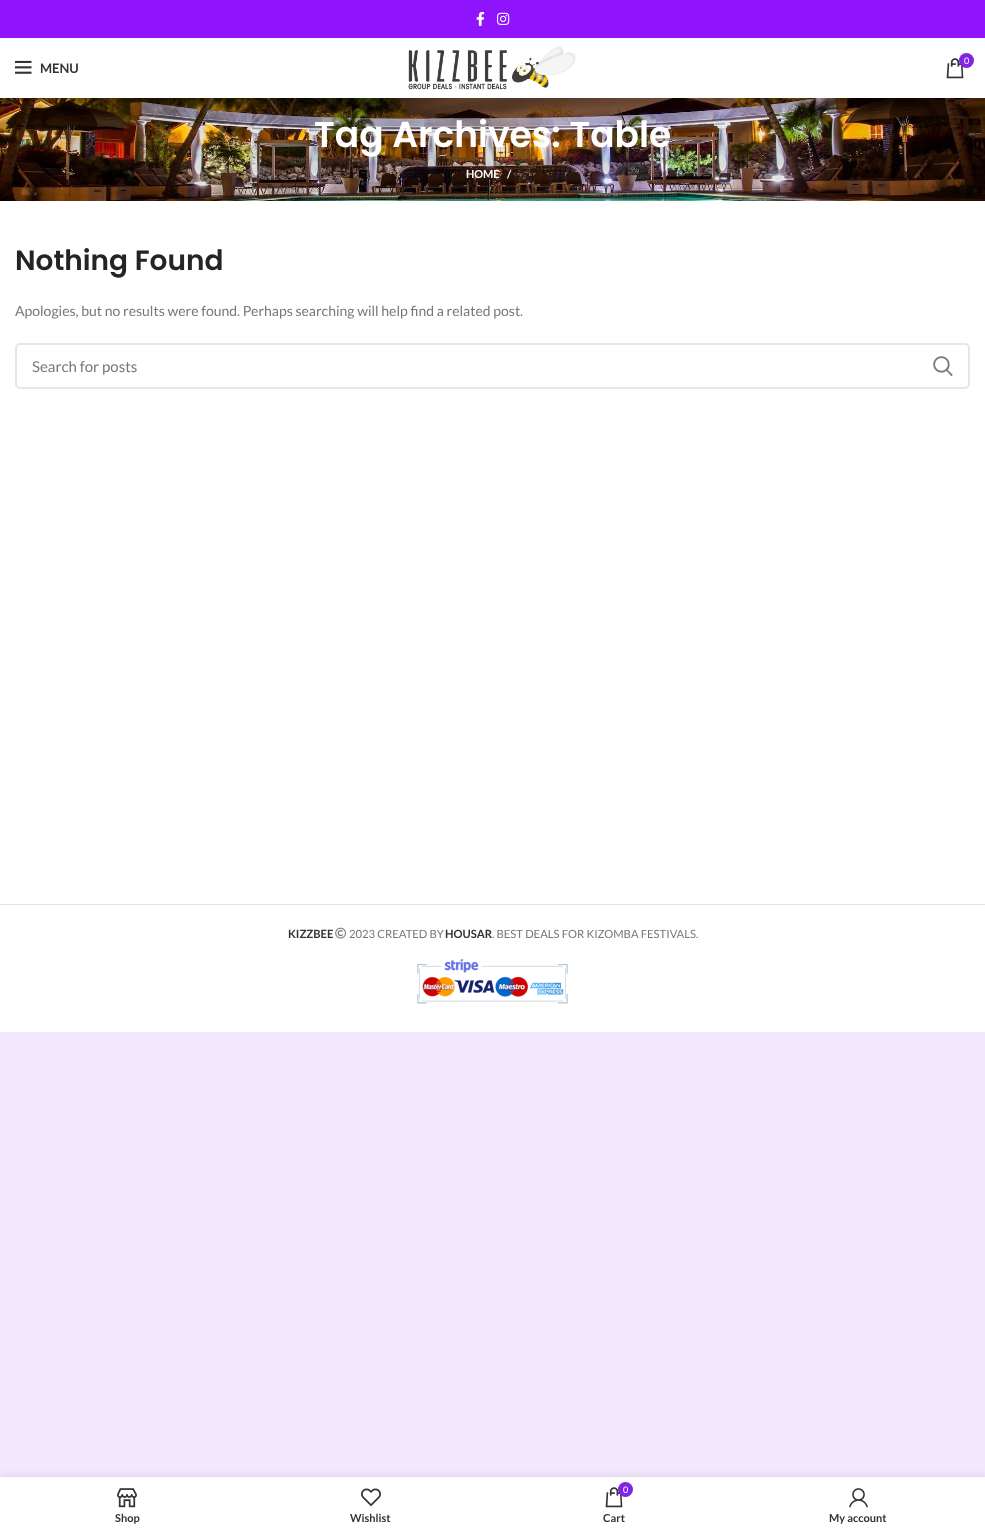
<!DOCTYPE html>
<meta charset="utf-8">
<style>body { margin: 0 } canvas { display: block }</style>
<canvas id="canvas" width="985" height="1532"></canvas>
<img id="img1" src="img_01.png" hidden>
<img id="img2" src="img_02.png" hidden>
<img id="img3" src="img_03.png" hidden>
<img id="img4" src="img_04.png" hidden>
<img id="img5" src="img_05.png" hidden>
<img id="img6" src="img_06.png" hidden>
<img id="img7" src="img_07.png" hidden>
<img id="img8" src="img_08.png" hidden>
<img id="img9" src="img_09.png" hidden>
<img id="img10" src="img_10.png" hidden>
<img id="img11" src="img_11.png" hidden>
<img id="img12" src="img_12.png" hidden>
<script>
window.onload = function () {
	const canvas = document.getElementById("canvas");
	const ctx = canvas.getContext("2d");
	ctx.miterLimit = 4;
	ctx.fontKerning = "normal";
	function txt(s, x, y) {
		ctx.fillText(s, x, y);
	}
	function fill(x, y, w, h) {
		ctx.fillRect(x, y, w, h);
	}
	function img(id, x, y, w, h) {
		ctx.drawImage(document.getElementById(id), x, y, w, h);
	}

	ctx.fillStyle = "#F2E8FD";
	fill(0, 0, 985, 1532);
	ctx.fillStyle = "#FFFFFF";
	fill(0, 38, 985, 994);
	ctx.fillStyle = "#9013FE";
	fill(0, 0, 985, 38);
	img("img1", 476, 11, 9, 15);
	img("img2", 497, 12, 13, 13);
	img("img3", 408, 46, 168, 44);
	img("img4", 946, 58, 18, 21);
	ctx.fillStyle = "#8224E3";
	ctx.beginPath();
	ctx.arc(966.5, 60.5, 7.5, 0, Math.PI * 2);
	ctx.fill();
	img("img5", 15, 60, 17, 14);
	img("img6", 0, 98, 985, 103);
	ctx.beginPath();
	ctx.roundRect(16, 344, 953, 44, 4);
	ctx.strokeStyle = "#E6E6E6";
	ctx.lineWidth = 2;
	ctx.stroke();
	img("img7", 933, 356, 20, 21);
	ctx.fillStyle = "#E4E4E4";
	fill(0, 904, 985, 1);
	img("img8", 335, 927, 11, 12);
	img("img9", 417, 959, 151, 45);
	ctx.fillStyle = "rgba(0, 0, 0, 0.12)";
	ctx.filter = "blur(4.5px)";
	ctx.beginPath();
	ctx.rect(0, 1477, 985, 55);
	ctx.fill();
	ctx.filter = "none";
	ctx.fillStyle = "#FFFFFF";
	fill(0, 1477, 985, 55);
	img("img10", 117, 1488, 20, 20);
	img("img11", 361, 1488, 20, 18);
	img("img4", 605, 1487, 18, 21);
	ctx.fillStyle = "#8224E3";
	ctx.beginPath();
	ctx.arc(625.5, 1489.5, 7.5, 0, Math.PI * 2);
	ctx.fill();
	img("img12", 849, 1488, 19, 20);
	ctx.font = "9px Lato";
	ctx.fillStyle = "#FFFFFF";
	txt("0", 964, 64);
	ctx.font = "bold 13px Lato";
	ctx.fillStyle = "#333333";
	txt("MENU", 40, 73);
	ctx.font = "600 36px Poppins";
	ctx.fillStyle = "#FFFFFF";
	txt("Tag Archives: Table", 314, 147);
	ctx.font = "bold 11px Lato";
	txt("HOME", 466, 178);
	txt("/", 507, 178);
	ctx.font = "600 28px Poppins";
	ctx.fillStyle = "#242424";
	txt("Nothing Found", 15, 270);
	ctx.font = "14px Lato";
	ctx.fillStyle = "#777777";
	txt("Apologies, but no results were found. Perhaps searching will help find a related post.", 15, 316);
	ctx.font = "15px Lato";
	txt("Search for posts", 32, 372);
	ctx.font = "bold 11.25px Lato";
	ctx.fillStyle = "#333333";
	txt("KIZZBEE", 288, 938);
	ctx.font = "11.25px Lato";
	ctx.fillStyle = "#777777";
	txt("2023 CREATED BY", 349, 938);
	ctx.font = "bold 11.25px Lato";
	ctx.fillStyle = "#333333";
	txt("HOUSAR", 445, 938);
	ctx.font = "11.25px Lato";
	ctx.fillStyle = "#777777";
	txt(". BEST DEALS FOR KIZOMBA FESTIVALS.", 492, 938);
	ctx.font = "bold 11px Lato";
	ctx.fillStyle = "#333333";
	txt("Shop", 115, 1522);
	txt("Wishlist", 350, 1522);
	ctx.font = "9px Lato";
	ctx.fillStyle = "#FFFFFF";
	txt("0", 623, 1493);
	ctx.font = "bold 11px Lato";
	ctx.fillStyle = "#333333";
	txt("Cart", 603, 1522);
	txt("My account", 829, 1522);
};
</script>
